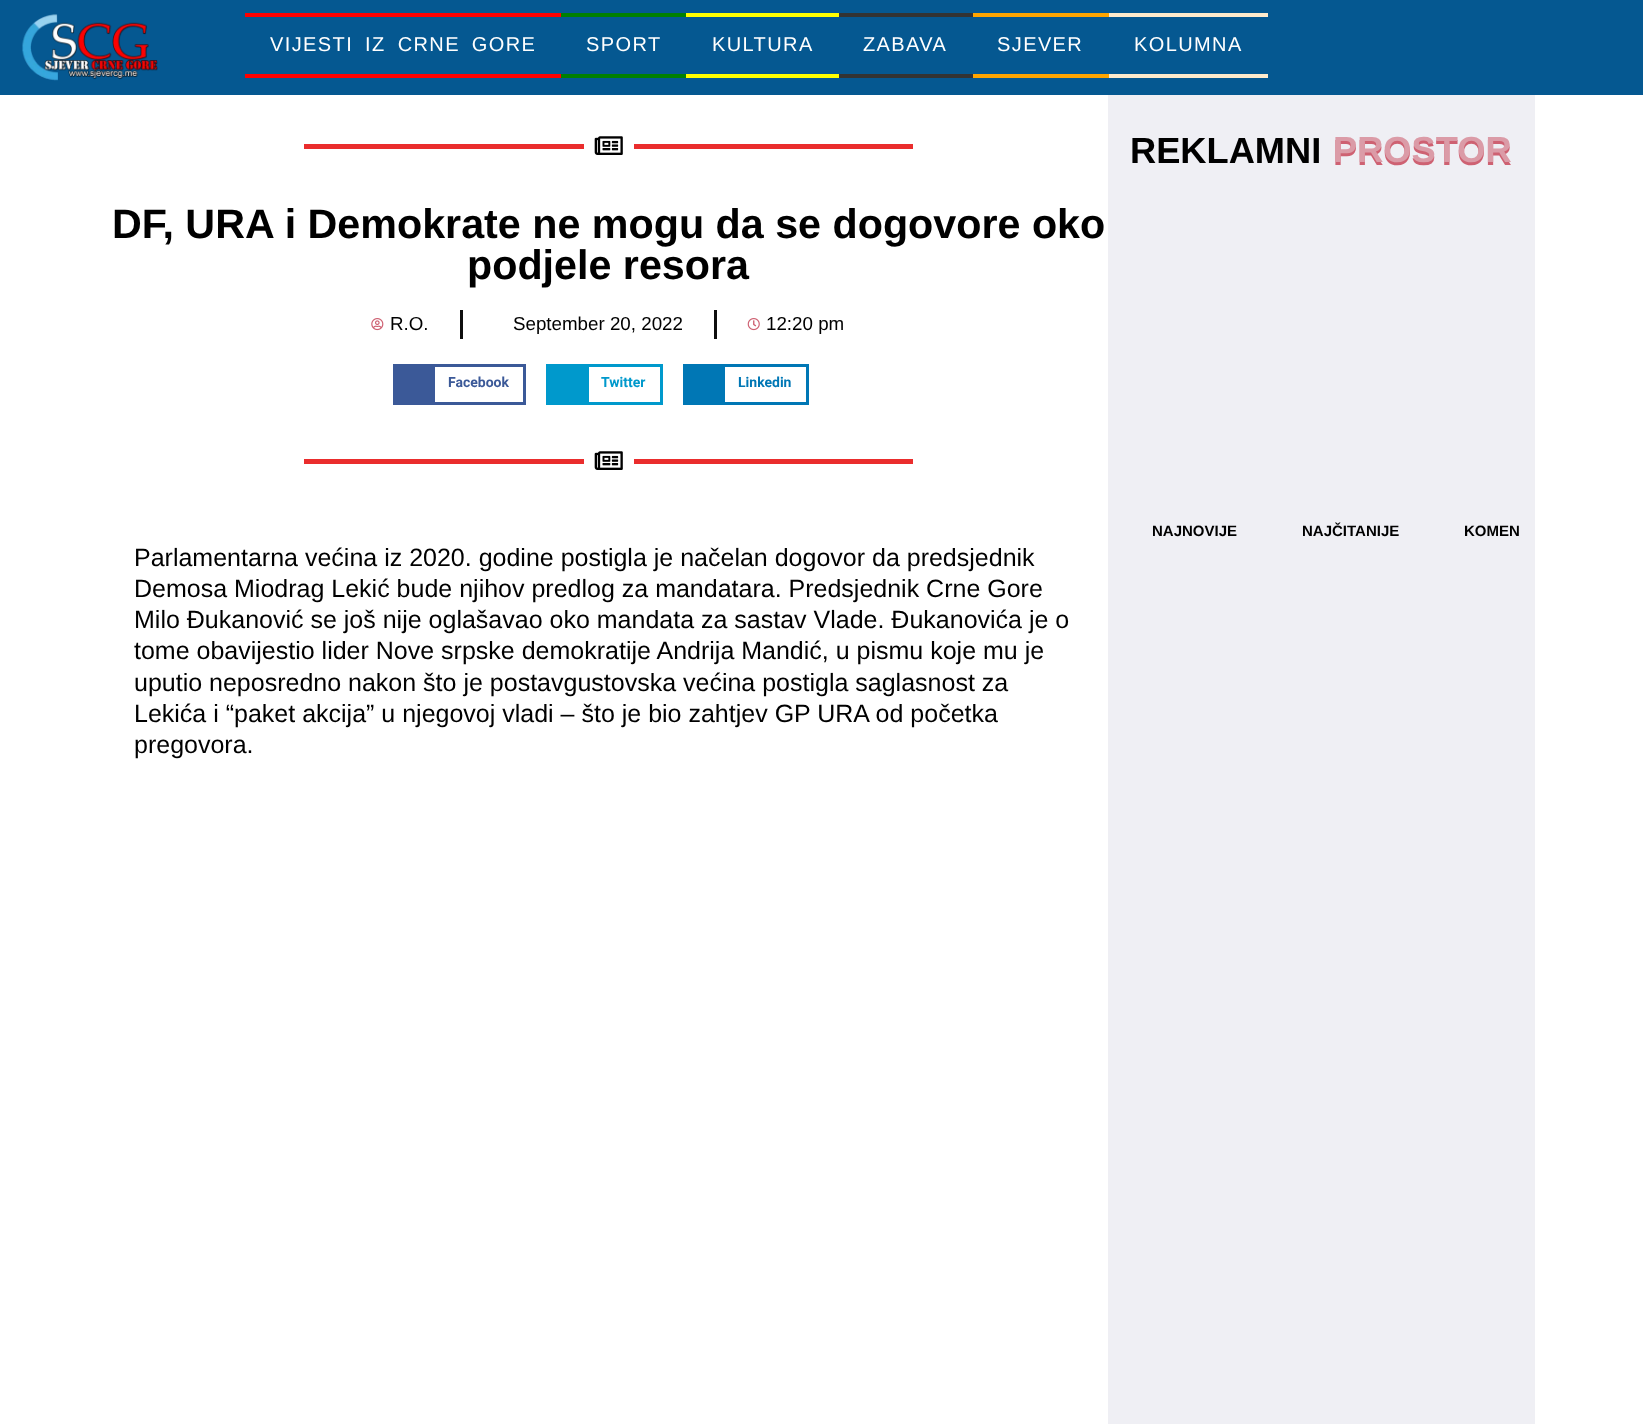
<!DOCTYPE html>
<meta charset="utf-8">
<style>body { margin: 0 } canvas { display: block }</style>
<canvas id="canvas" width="1643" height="1424"></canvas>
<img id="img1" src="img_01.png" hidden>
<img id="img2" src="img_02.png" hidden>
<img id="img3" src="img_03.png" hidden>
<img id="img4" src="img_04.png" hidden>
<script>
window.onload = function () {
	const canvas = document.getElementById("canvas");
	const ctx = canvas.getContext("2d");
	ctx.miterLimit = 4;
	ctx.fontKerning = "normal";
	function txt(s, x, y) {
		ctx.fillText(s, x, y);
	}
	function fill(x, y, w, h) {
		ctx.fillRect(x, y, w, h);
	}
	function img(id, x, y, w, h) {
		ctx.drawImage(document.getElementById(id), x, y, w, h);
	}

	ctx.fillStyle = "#FFFFFF";
	fill(0, 0, 1643, 1424);
	ctx.fillStyle = "#055891";
	fill(0, 0, 1643, 95);
	img("img1", 22, 14, 136, 67);
	ctx.fillStyle = "#FF0000";
	fill(245, 13, 316, 4);
	fill(245, 74, 316, 4);
	ctx.fillStyle = "#008000";
	fill(561, 13, 125, 4);
	fill(561, 74, 125, 4);
	ctx.fillStyle = "#FFFF00";
	fill(686, 13, 153, 4);
	fill(686, 74, 153, 4);
	ctx.fillStyle = "#333333";
	fill(839, 13, 134, 4);
	fill(839, 74, 134, 4);
	ctx.fillStyle = "#FFA500";
	fill(973, 13, 136, 4);
	fill(973, 74, 136, 4);
	ctx.fillStyle = "#FFEBCD";
	fill(1109, 13, 159, 4);
	fill(1109, 74, 159, 4);
	ctx.fillStyle = "#EA2D2D";
	fill(304, 144, 280, 5);
	img("img2", 594, 136, 29, 19);
	fill(634, 144, 279, 5);
	img("img3", 371, 318, 13, 13);
	ctx.fillStyle = "#0E0E0E";
	fill(460, 310, 3, 29);
	fill(714, 310, 3, 29);
	img("img4", 747, 318, 13, 13);
	ctx.strokeStyle = "#3B5998";
	ctx.lineWidth = 3;
	ctx.strokeRect(394.5, 365.5, 130, 38);
	ctx.fillStyle = "#3B5998";
	fill(396, 367, 39, 35);
	ctx.strokeStyle = "#0099CC";
	ctx.strokeRect(547.5, 365.5, 114, 38);
	ctx.fillStyle = "#0099CC";
	fill(549, 367, 40, 35);
	ctx.strokeStyle = "#0077B5";
	ctx.strokeRect(684.5, 365.5, 123, 38);
	ctx.fillStyle = "#0077B5";
	fill(686, 367, 39, 35);
	ctx.fillStyle = "#EA2D2D";
	fill(304, 459, 280, 5);
	img("img2", 594, 451, 29, 19);
	fill(634, 459, 279, 5);
	ctx.fillStyle = "#EFEFF4";
	fill(1108, 95, 427, 1329);
	ctx.letterSpacing = "1.4px";
	ctx.wordSpacing = "5px";
	ctx.font = "20px Liberation Sans";
	ctx.fillStyle = "#FFFFFF";
	txt("VIJESTI IZ CRNE GORE", 270, 51);
	ctx.wordSpacing = "0px";
	txt("SPORT", 586, 51);
	txt("KULTURA", 712, 51);
	txt("ZABAVA", 863, 51);
	txt("SJEVER", 997, 51);
	txt("KOLUMNA", 1134, 51);
	ctx.letterSpacing = "0px";
	ctx.font = "bold 41.25px Liberation Sans";
	ctx.fillStyle = "#000000";
	txt("DF, URA i Demokrate ne mogu da se dogovore oko", 112, 238);
	txt("podjele resora", 467, 279);
	ctx.font = "18.75px Liberation Sans";
	txt("R.O.", 390, 330);
	txt("September 20, 2022", 513, 330);
	txt("12:20 pm", 766, 330);
	ctx.font = "bold 14px Roboto";
	ctx.fillStyle = "#3B5998";
	txt("Facebook", 448, 387);
	ctx.fillStyle = "#0099CC";
	txt("Twitter", 601, 387);
	ctx.fillStyle = "#0077B5";
	txt("Linkedin", 738, 387);
	ctx.font = "25px Liberation Sans";
	ctx.fillStyle = "#000000";
	txt("Parlamentarna većina iz 2020. godine postigla je načelan dogovor da predsjednik", 134, 566);
	txt("Demosa Miodrag Lekić bude njihov predlog za mandatara. Predsjednik Crne Gore", 134, 597);
	txt("Milo Đukanović se još nije oglašavao oko mandata za sastav Vlade. Đukanovića je o", 134, 628);
	txt("tome obavijestio lider Nove srpske demokratije Andrija Mandić, u pismu koje mu je", 134, 659);
	txt("uputio neposredno nakon što je postavgustovska većina postigla saglasnost za", 134, 691);
	txt("Lekića i “paket akcija” u njegovoj vladi – što je bio zahtjev GP URA od početka", 134, 722);
	txt("pregovora.", 134, 753);
	ctx.font = "bold 36.25px Liberation Sans";
	txt("REKLAMNI", 1130, 163);
	ctx.fillStyle = "#CE6172";
	txt("PROSTOR", 1333, 165);
	ctx.fillStyle = "#DB9BA7";
	txt("PROSTOR", 1333, 162);
	ctx.font = "bold 15px Liberation Sans";
	ctx.fillStyle = "#000000";
	txt("NAJNOVIJE", 1152, 536);
	txt("NAJČITANIJE", 1302, 536);
	txt("KOMEN", 1464, 536);
};
</script>
